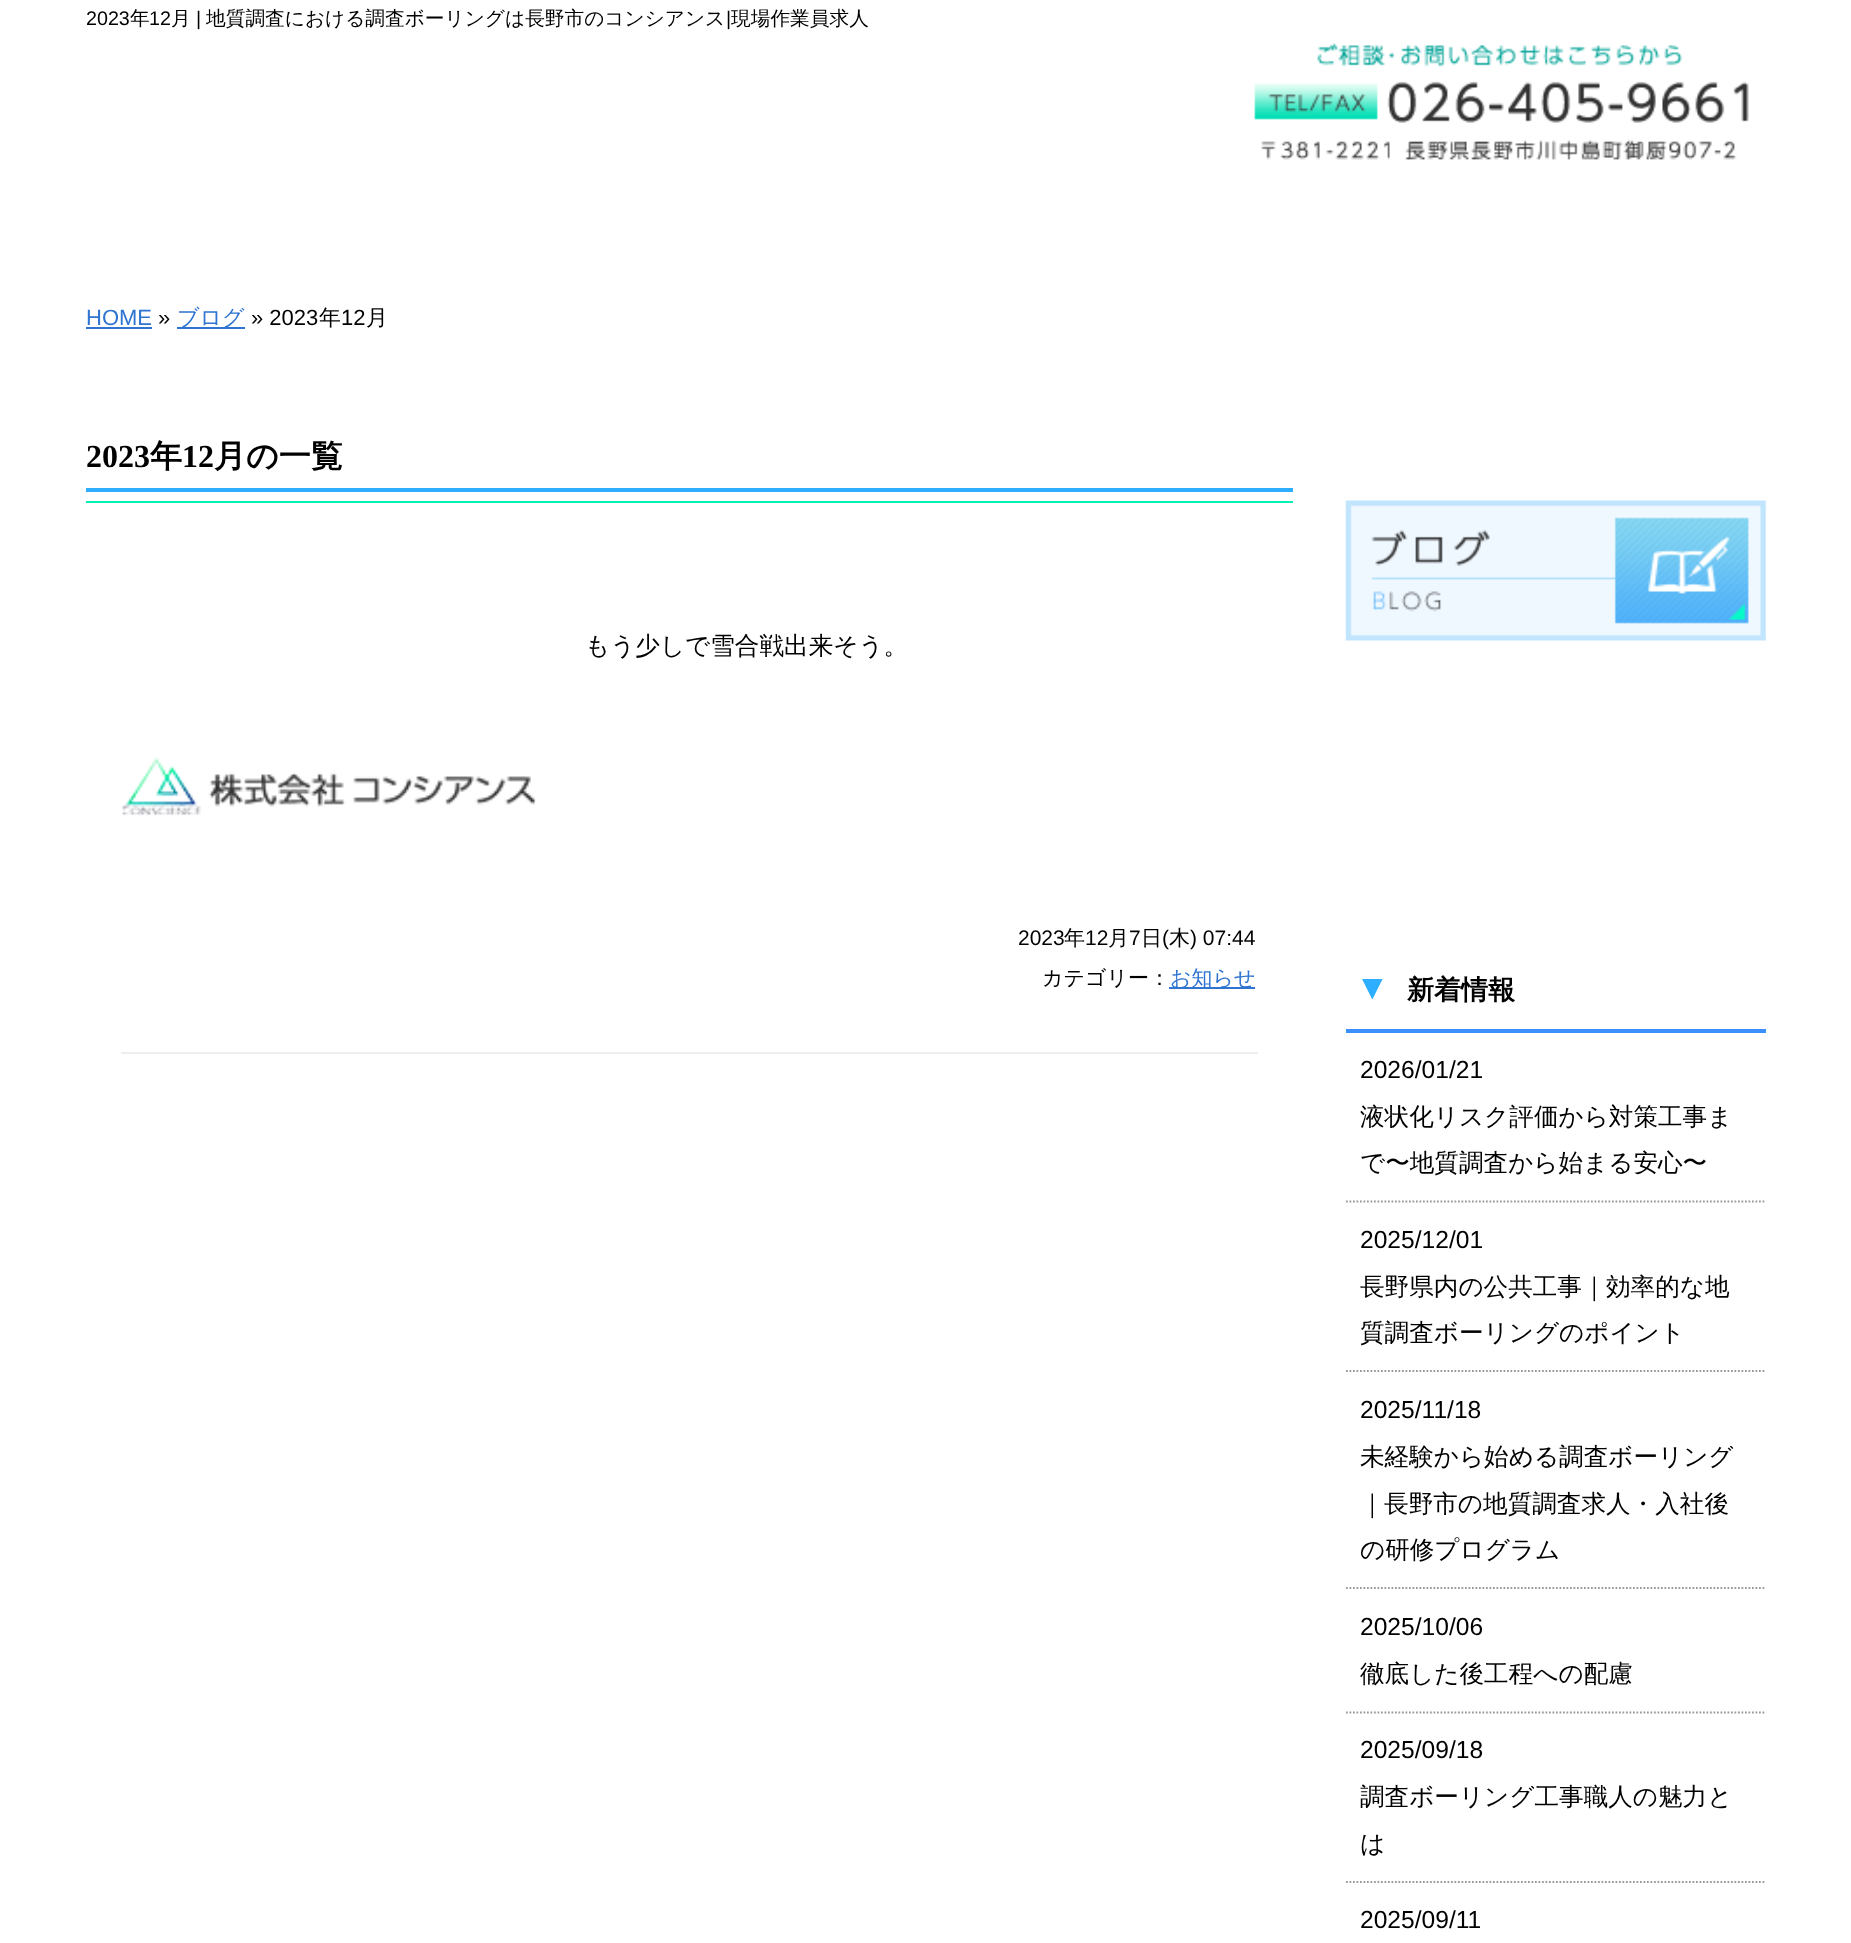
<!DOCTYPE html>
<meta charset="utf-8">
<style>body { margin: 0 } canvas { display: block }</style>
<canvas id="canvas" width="1851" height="1943"></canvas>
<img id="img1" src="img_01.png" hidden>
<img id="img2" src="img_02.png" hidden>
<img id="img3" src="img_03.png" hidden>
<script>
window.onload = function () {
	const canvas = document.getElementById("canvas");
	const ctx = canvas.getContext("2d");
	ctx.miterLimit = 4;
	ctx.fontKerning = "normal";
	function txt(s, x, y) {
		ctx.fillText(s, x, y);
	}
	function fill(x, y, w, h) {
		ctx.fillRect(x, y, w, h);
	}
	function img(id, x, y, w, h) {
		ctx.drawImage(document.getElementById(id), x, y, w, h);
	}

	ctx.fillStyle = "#FFFFFF";
	fill(0, 0, 1851, 1943);
	img("img1", 1254, 43, 495, 117);
	ctx.fillStyle = "#2F74D0";
	fill(86, 327, 66, 2);
	fill(177, 327, 68, 2);
	ctx.fillStyle = "#2FAEFF";
	fill(86, 488, 1207, 4);
	ctx.fillStyle = "#02F0B5";
	fill(86, 501, 1207, 2);
	ctx.fillStyle = "#EEEEEE";
	fill(121, 1052, 1137, 2);
	img("img2", 122, 757, 414, 59);
	ctx.fillStyle = "#2F74D0";
	fill(1169, 987, 86, 2);
	img("img3", 1345, 500, 421, 141);
	ctx.fillStyle = "#3C8FFF";
	fill(1346, 1029, 420, 4);
	ctx.beginPath();
	ctx.moveTo(1346, 1201.5);
	ctx.lineTo(1766, 1201.5);
	ctx.strokeStyle = "#999999";
	ctx.lineWidth = 1.8;
	ctx.setLineDash([1.75, 1.75]);
	ctx.stroke();
	ctx.beginPath();
	ctx.moveTo(1346, 1371);
	ctx.lineTo(1766, 1371);
	ctx.stroke();
	ctx.beginPath();
	ctx.moveTo(1346, 1588);
	ctx.lineTo(1766, 1588);
	ctx.stroke();
	ctx.beginPath();
	ctx.moveTo(1346, 1712.5);
	ctx.lineTo(1766, 1712.5);
	ctx.stroke();
	ctx.beginPath();
	ctx.moveTo(1346, 1882);
	ctx.lineTo(1766, 1882);
	ctx.stroke();
	ctx.font = "19.7px Liberation Sans";
	ctx.fillStyle = "#000000";
	txt("2023", 86, 25);
	ctx.font = "500 19.7px WenQuanYi Zen Hei";
	txt("年", 130, 25);
	ctx.font = "19.7px Liberation Sans";
	txt("12", 149, 25);
	ctx.font = "500 19.7px WenQuanYi Zen Hei";
	txt("月", 171, 25);
	ctx.font = "19.7px Liberation Sans";
	txt("|", 196, 25);
	ctx.font = "500 19.7px WenQuanYi Zen Hei";
	txt("地質調査における調査ボーリングは長野市のコンシアンス", 206, 25);
	ctx.font = "19.7px Liberation Sans";
	txt("|", 726, 25);
	ctx.font = "500 19.7px WenQuanYi Zen Hei";
	txt("現場作業員求人", 731, 25);
	ctx.font = "22px Liberation Sans";
	ctx.fillStyle = "#2F74D0";
	txt("HOME", 86, 325);
	ctx.fillStyle = "#000000";
	txt("»", 158, 325);
	ctx.font = "500 22px WenQuanYi Zen Hei";
	ctx.fillStyle = "#2F74D0";
	txt("ブログ", 177, 325);
	ctx.font = "22px Liberation Sans";
	ctx.fillStyle = "#000000";
	txt("» 2023", 251, 325);
	ctx.font = "500 22px WenQuanYi Zen Hei";
	txt("年", 319, 325);
	ctx.font = "22px Liberation Sans";
	txt("12", 341, 325);
	ctx.font = "500 22px WenQuanYi Zen Hei";
	txt("月", 366, 325);
	ctx.font = "bold 32px Liberation Serif";
	txt("2023", 86, 467);
	ctx.font = "bold 32px WenQuanYi Zen Hei";
	txt("年", 150, 467);
	ctx.font = "bold 32px Liberation Serif";
	txt("12", 182, 467);
	ctx.font = "bold 32px WenQuanYi Zen Hei";
	txt("月の一覧", 214, 467);
	ctx.font = "500 24.6px WenQuanYi Zen Hei";
	txt("もう少しで雪合戦出来そう。", 585, 654);
	ctx.font = "21px Liberation Sans";
	txt("2023", 1018, 945);
	ctx.font = "500 21px WenQuanYi Zen Hei";
	txt("年", 1064, 945);
	ctx.font = "21px Liberation Sans";
	txt("12", 1085, 945);
	ctx.font = "500 21px WenQuanYi Zen Hei";
	txt("月", 1108, 945);
	ctx.font = "21px Liberation Sans";
	txt("7", 1129, 945);
	ctx.font = "500 21px WenQuanYi Zen Hei";
	txt("日", 1141, 945);
	ctx.font = "21px Liberation Sans";
	txt("(", 1162, 945);
	ctx.font = "500 21px WenQuanYi Zen Hei";
	txt("木", 1169, 945);
	ctx.font = "21px Liberation Sans";
	txt(") 07:44", 1190, 945);
	ctx.font = "500 21px WenQuanYi Zen Hei";
	txt("カテゴリー：", 1042, 985);
	ctx.fillStyle = "#2F74D0";
	txt("お知らせ", 1170, 985);
	ctx.font = "bold 35px Liberation Serif";
	ctx.fillStyle = "#2DAEFF";
	txt("▼", 1355, 999);
	ctx.font = "bold 27px WenQuanYi Zen Hei";
	ctx.fillStyle = "#000000";
	txt("新着情報", 1407, 999);
	ctx.font = "24.6px Liberation Sans";
	txt("2026/01/21", 1360, 1078);
	ctx.font = "500 24.6px WenQuanYi Zen Hei";
	txt("液状化リスク評価から対策工事ま", 1360, 1125);
	txt("で〜地質調査から始まる安心〜", 1360, 1171);
	ctx.font = "24.6px Liberation Sans";
	txt("2025/12/01", 1360, 1248);
	ctx.font = "500 24.6px WenQuanYi Zen Hei";
	txt("長野県内の公共工事｜効率的な地", 1360, 1295);
	txt("質調査ボーリングのポイント", 1360, 1341);
	ctx.font = "24.6px Liberation Sans";
	txt("2025/11/18", 1360, 1418);
	ctx.font = "500 24.6px WenQuanYi Zen Hei";
	txt("未経験から始める調査ボーリング", 1360, 1465);
	txt("｜長野市の地質調査求人・入社後", 1360, 1512);
	txt("の研修プログラム", 1360, 1558);
	ctx.font = "24.6px Liberation Sans";
	txt("2025/10/06", 1360, 1635);
	ctx.font = "500 24.6px WenQuanYi Zen Hei";
	txt("徹底した後工程への配慮", 1360, 1682);
	ctx.font = "24.6px Liberation Sans";
	txt("2025/09/18", 1360, 1758);
	ctx.font = "500 24.6px WenQuanYi Zen Hei";
	txt("調査ボーリング工事職人の魅力と", 1360, 1805);
	txt("は", 1360, 1852);
	ctx.font = "24.6px Liberation Sans";
	txt("2025/09/11", 1360, 1928);
};
</script>
